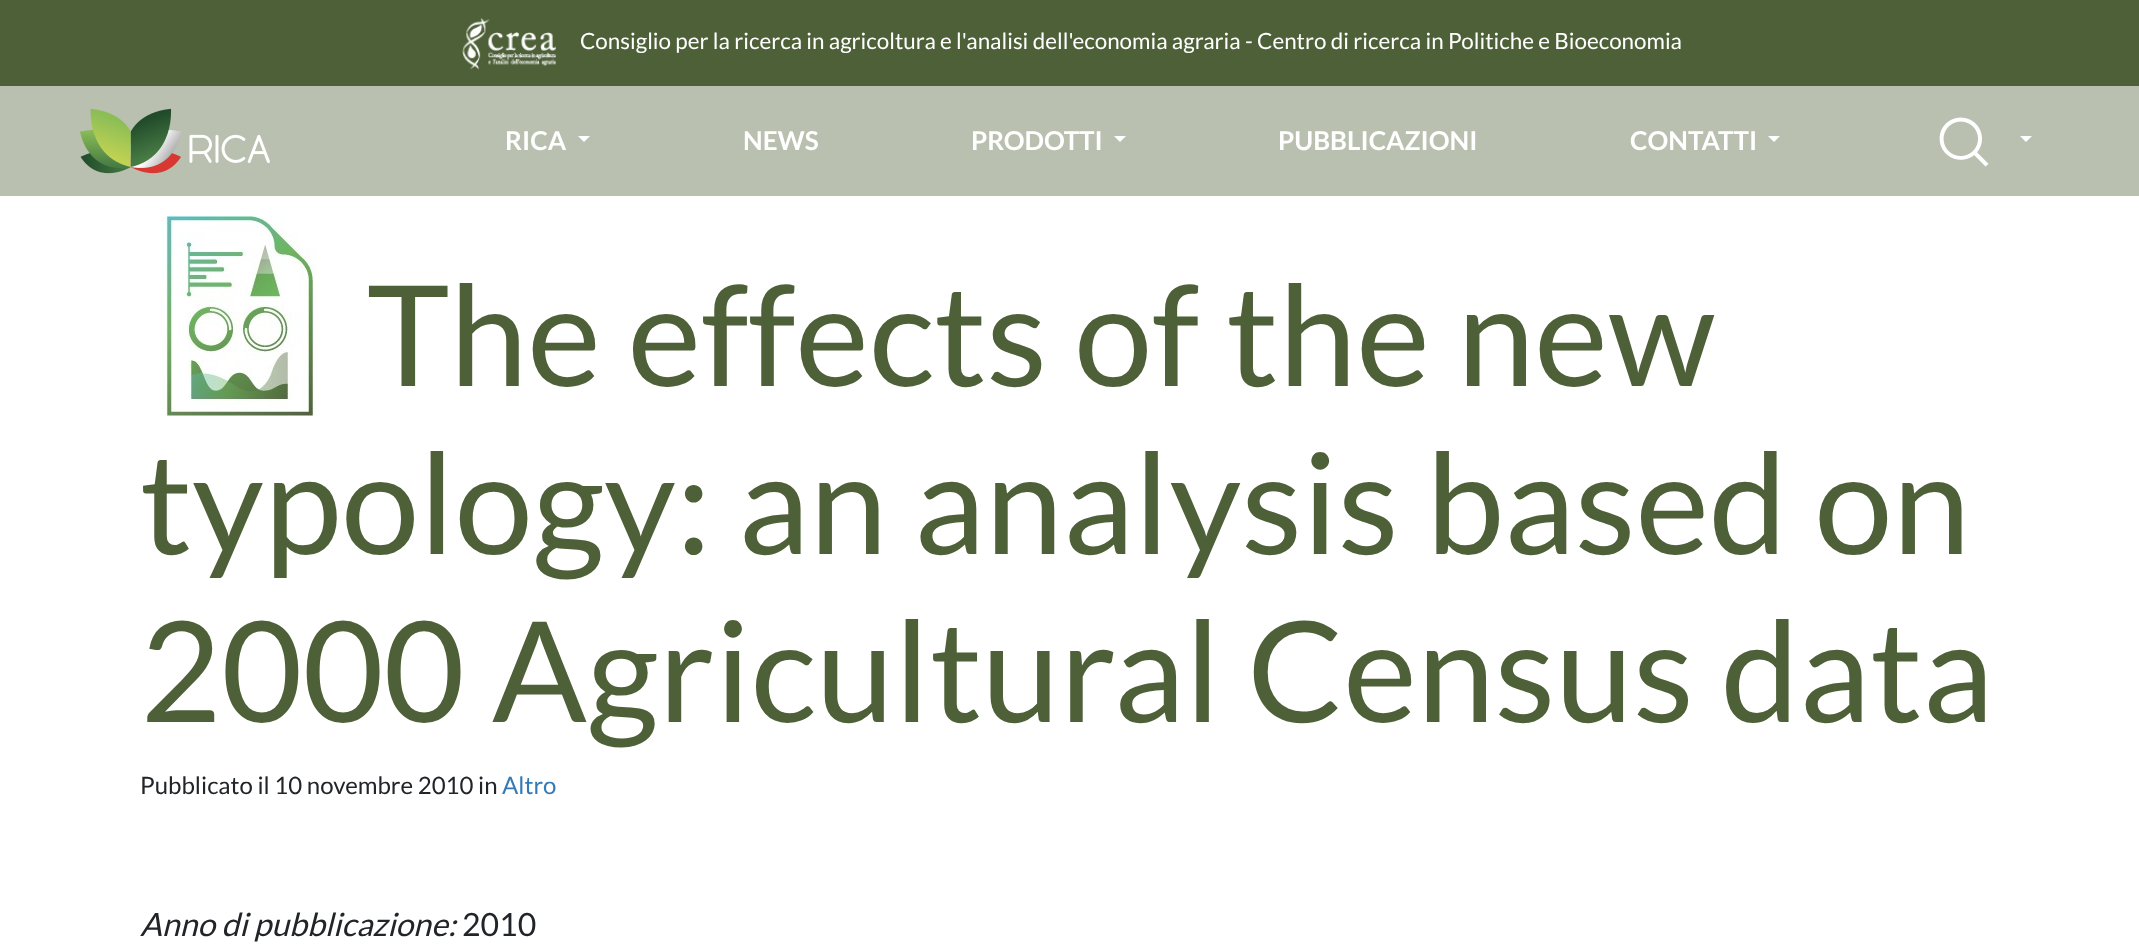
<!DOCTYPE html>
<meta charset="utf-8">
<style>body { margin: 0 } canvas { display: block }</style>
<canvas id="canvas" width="2139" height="945"></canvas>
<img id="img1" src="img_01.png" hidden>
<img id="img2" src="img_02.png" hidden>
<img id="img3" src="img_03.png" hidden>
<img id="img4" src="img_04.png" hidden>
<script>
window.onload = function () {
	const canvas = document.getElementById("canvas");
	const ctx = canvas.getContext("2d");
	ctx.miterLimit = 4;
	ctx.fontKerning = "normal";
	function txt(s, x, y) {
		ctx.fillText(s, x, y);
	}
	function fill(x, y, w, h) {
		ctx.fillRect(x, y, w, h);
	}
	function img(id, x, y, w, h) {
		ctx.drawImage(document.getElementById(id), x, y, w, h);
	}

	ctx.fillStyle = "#FFFFFF";
	fill(0, 0, 2139, 945);
	ctx.fillStyle = "#4E6038";
	fill(0, 0, 2139, 86);
	img("img1", 462, 18, 94, 52);
	ctx.fillStyle = "#B9C0B0";
	fill(0, 86, 2139, 110);
	img("img2", 80, 108, 190, 66);
	ctx.fillStyle = "#FFFFFF";
	ctx.beginPath();
	ctx.moveTo(578, 136);
	ctx.lineTo(590, 136);
	ctx.lineTo(584, 142);
	ctx.closePath();
	ctx.fill();
	ctx.beginPath();
	ctx.moveTo(1114, 136);
	ctx.lineTo(1126, 136);
	ctx.lineTo(1120, 142);
	ctx.closePath();
	ctx.fill();
	ctx.beginPath();
	ctx.moveTo(1768, 136);
	ctx.lineTo(1780, 136);
	ctx.lineTo(1774, 142);
	ctx.closePath();
	ctx.fill();
	img("img3", 1939, 117, 50, 50);
	ctx.beginPath();
	ctx.moveTo(2020, 136);
	ctx.lineTo(2032, 136);
	ctx.lineTo(2026, 142);
	ctx.closePath();
	ctx.fill();
	img("img4", 161, 216, 155, 200);
	ctx.font = "22.4px Lato";
	txt("Consiglio per la ricerca in agricoltura e l'analisi dell'economia agraria - Centro di ricerca in Politiche e Bioeconomia", 580, 49);
	ctx.font = "bold 26px Lato";
	txt("RICA", 505, 150);
	txt("NEWS", 743, 150);
	txt("PRODOTTI", 971, 150);
	txt("PUBBLICAZIONI", 1278, 150);
	txt("CONTATTI", 1630, 150);
	ctx.font = "140px Lato";
	ctx.fillStyle = "#4E6038";
	txt("The effects of the new", 367, 386);
	txt("typology: an analysis based on", 140, 554);
	txt("2000 Agricultural Census data", 140, 722);
	ctx.font = "24px Lato";
	ctx.fillStyle = "#212529";
	txt("Pubblicato il 10 novembre 2010 in", 140, 794);
	ctx.fillStyle = "#337AB7";
	txt("Altro", 502, 794);
	ctx.font = "italic 32px Lato";
	ctx.fillStyle = "#212529";
	txt("Anno di pubblicazione:", 140, 936);
	ctx.font = "32px Lato";
	txt("2010", 462, 936);
};
</script>
